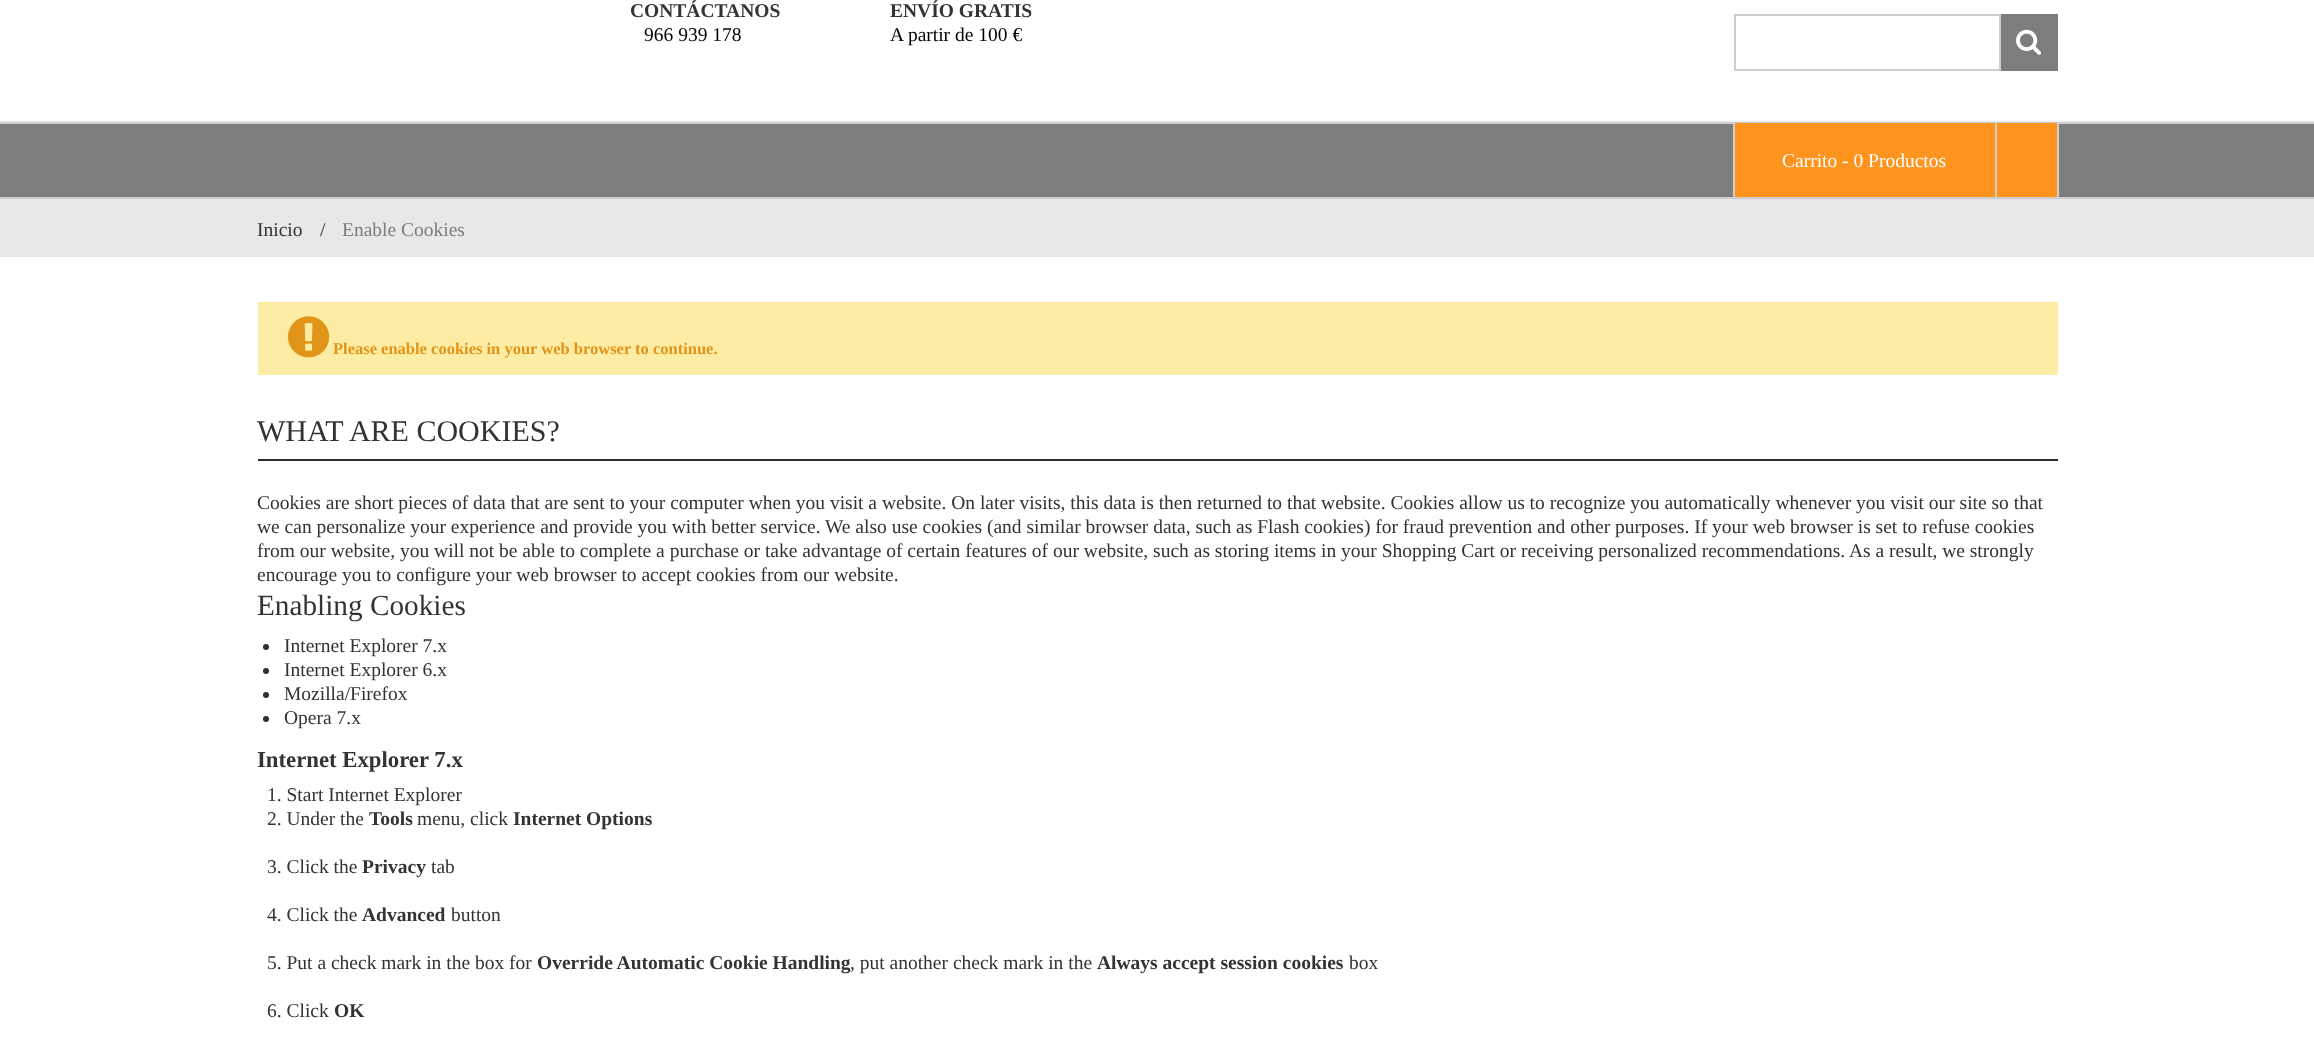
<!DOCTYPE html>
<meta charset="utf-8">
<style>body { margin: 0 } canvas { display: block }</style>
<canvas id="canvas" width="2314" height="1052"></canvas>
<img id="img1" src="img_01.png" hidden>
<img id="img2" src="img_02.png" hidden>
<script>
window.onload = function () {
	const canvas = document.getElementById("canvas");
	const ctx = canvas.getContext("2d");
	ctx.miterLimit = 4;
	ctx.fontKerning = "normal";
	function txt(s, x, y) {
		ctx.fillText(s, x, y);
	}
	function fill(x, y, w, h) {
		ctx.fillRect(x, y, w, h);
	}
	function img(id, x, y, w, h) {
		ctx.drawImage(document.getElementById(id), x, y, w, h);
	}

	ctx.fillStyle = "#FFFFFF";
	fill(0, 0, 2314, 1052);
	ctx.strokeStyle = "#CDCDCD";
	ctx.lineWidth = 2;
	ctx.strokeRect(1735, 15, 265, 55);
	ctx.fillStyle = "#7D7D7D";
	fill(2001, 14, 57, 57);
	img("img1", 2016, 29, 25, 26);
	ctx.fillStyle = "#E8E8E8";
	fill(0, 199, 2314, 58);
	ctx.fillStyle = "rgba(0, 0, 0, 0.25)";
	ctx.filter = "blur(1px)";
	ctx.beginPath();
	ctx.rect(0, 122, 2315, 76);
	ctx.fill();
	ctx.filter = "none";
	ctx.fillStyle = "#7D7D7D";
	fill(0, 124, 2314, 73);
	ctx.fillStyle = "#CECECE";
	fill(0, 122, 2314, 2);
	fill(0, 197, 2314, 2);
	ctx.fillStyle = "#FE941E";
	fill(1735, 123, 322, 74);
	ctx.fillStyle = "#CECECE";
	fill(1733, 123, 2, 74);
	fill(2057, 123, 2, 74);
	fill(1995, 123, 2, 74);
	ctx.fillStyle = "#FDEDA4";
	fill(258, 302, 1800, 73);
	img("img2", 288, 316, 42, 42);
	ctx.fillStyle = "#2E2E2E";
	fill(258, 459, 1800, 2);
	ctx.beginPath();
	ctx.arc(266, 647, 3, 0, Math.PI * 2);
	ctx.fill();
	ctx.beginPath();
	ctx.arc(266, 671, 3, 0, Math.PI * 2);
	ctx.fill();
	ctx.beginPath();
	ctx.arc(266, 695, 3, 0, Math.PI * 2);
	ctx.fill();
	ctx.beginPath();
	ctx.arc(266, 719, 3, 0, Math.PI * 2);
	ctx.fill();
	ctx.font = "bold 19.5px Liberation Serif";
	ctx.fillStyle = "#333333";
	txt("CONTÁCTANOS", 630, 17);
	ctx.font = "19.5px Liberation Serif";
	ctx.fillStyle = "#000000";
	txt("966 939 178", 644, 41);
	ctx.font = "bold 19.5px Liberation Serif";
	ctx.fillStyle = "#333333";
	txt("ENVÍO GRATIS", 890, 17);
	ctx.font = "19.5px Liberation Serif";
	ctx.fillStyle = "#000000";
	txt("A partir de 100 €", 890, 41);
	ctx.fillStyle = "#FFFFFF";
	txt("Carrito - 0 Productos", 1782, 167);
	ctx.fillStyle = "#333333";
	txt("Inicio", 257, 236);
	txt("/", 320, 236);
	ctx.fillStyle = "#7D7D7D";
	txt("Enable Cookies", 342, 236);
	ctx.font = "bold 16.5px Liberation Serif";
	ctx.fillStyle = "#E1941A";
	txt("Please enable cookies in your web browser to continue.", 333, 354);
	ctx.font = "30px Liberation Serif";
	ctx.fillStyle = "#333333";
	txt("WHAT ARE COOKIES?", 257, 441);
	ctx.font = "19.5px Liberation Serif";
	txt("Cookies are short pieces of data that are sent to your computer when you visit a website. On later visits, this data is then returned to that website. Cookies allow us to recognize you automatically whenever you visit our site so that", 257, 509);
	txt("we can personalize your experience and provide you with better service.", 257, 533);
	txt("We also use cookies (and similar browser data, such as Flash cookies) for fraud prevention and other purposes. If your web browser is set to refuse cookies", 825, 533);
	txt("from our website, you will not be able to complete a purchase or take advantage of certain features of our website, such as storing items in your Shopping Cart or receiving personalized recommendations. As a result, we strongly", 257, 557);
	txt("encourage you to configure your web browser to accept cookies from our website.", 257, 581);
	ctx.font = "29.25px Liberation Serif";
	txt("Enabling Cookies", 257, 615);
	ctx.font = "19.5px Liberation Serif";
	txt("Internet Explorer 7.x", 284, 652);
	txt("Internet Explorer 6.x", 284, 676);
	txt("Mozilla/Firefox", 284, 700);
	txt("Opera 7.x", 284, 724);
	ctx.font = "bold 22.75px Liberation Serif";
	txt("Internet Explorer 7.x", 257, 767);
	ctx.font = "19.5px Liberation Serif";
	txt("1. Start Internet Explorer", 267, 801);
	txt("2. Under the", 267, 825);
	ctx.font = "bold 19.5px Liberation Serif";
	txt("Tools", 369, 825);
	ctx.font = "19.5px Liberation Serif";
	txt("menu, click", 417, 825);
	ctx.font = "bold 19.5px Liberation Serif";
	txt("Internet Options", 513, 825);
	ctx.font = "19.5px Liberation Serif";
	txt("3. Click the", 267, 873);
	ctx.font = "bold 19.5px Liberation Serif";
	txt("Privacy", 362, 873);
	ctx.font = "19.5px Liberation Serif";
	txt("tab", 431, 873);
	txt("4. Click the", 267, 921);
	ctx.font = "bold 19.5px Liberation Serif";
	txt("Advanced", 362, 921);
	ctx.font = "19.5px Liberation Serif";
	txt("button", 451, 921);
	txt("5. Put a check mark in the box for", 267, 969);
	ctx.font = "bold 19.5px Liberation Serif";
	txt("Override Automatic Cookie Handling", 537, 969);
	ctx.font = "19.5px Liberation Serif";
	txt(", put another check mark in the", 850, 969);
	ctx.font = "bold 19.5px Liberation Serif";
	txt("Always accept session cookies", 1097, 969);
	ctx.font = "19.5px Liberation Serif";
	txt("box", 1349, 969);
	txt("6. Click", 267, 1017);
	ctx.font = "bold 19.5px Liberation Serif";
	txt("OK", 334, 1017);
};
</script>
